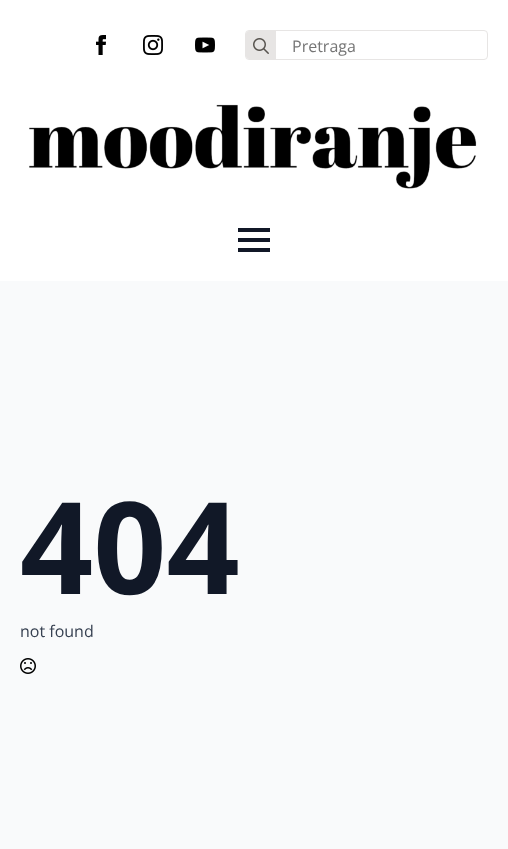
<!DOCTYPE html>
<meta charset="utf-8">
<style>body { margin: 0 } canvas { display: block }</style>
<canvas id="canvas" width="508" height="849"></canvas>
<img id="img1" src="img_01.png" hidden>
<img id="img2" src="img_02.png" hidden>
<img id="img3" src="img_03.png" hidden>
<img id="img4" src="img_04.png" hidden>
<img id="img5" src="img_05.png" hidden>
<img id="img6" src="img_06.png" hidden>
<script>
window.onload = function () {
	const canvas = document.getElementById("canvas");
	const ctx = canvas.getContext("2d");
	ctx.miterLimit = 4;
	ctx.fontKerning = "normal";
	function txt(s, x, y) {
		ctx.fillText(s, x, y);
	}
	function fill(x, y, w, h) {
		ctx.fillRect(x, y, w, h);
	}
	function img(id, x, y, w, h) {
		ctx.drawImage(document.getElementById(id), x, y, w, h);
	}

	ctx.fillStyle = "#F9FAFB";
	fill(0, 0, 508, 849);
	ctx.fillStyle = "#FFFFFF";
	fill(0, 0, 508, 281);
	img("img1", 96, 35, 10, 20);
	img("img2", 143, 35, 20, 20);
	img("img3", 195, 37, 20, 16);
	ctx.beginPath();
	ctx.roundRect(245.5, 30.5, 242, 29, 3.5);
	ctx.strokeStyle = "#E7E5E4";
	ctx.stroke();
	ctx.fillStyle = "#E7E5E4";
	ctx.beginPath();
	ctx.roundRect(246, 31, 30, 28, [3, 0, 0, 3]);
	ctx.fill();
	img("img4", 253, 38, 16, 16);
	img("img5", 29, 104, 448, 85);
	ctx.fillStyle = "#111827";
	fill(238, 238, 32, 4);
	fill(238, 228, 32, 4);
	fill(238, 248, 32, 4);
	img("img6", 20, 658, 16, 16);
	ctx.font = "16px Open Sans";
	ctx.fillStyle = "#757575";
	txt("Pretraga", 292, 52);
	ctx.font = "bold 128px Open Sans";
	ctx.fillStyle = "#111827";
	txt("404", 20, 594);
	ctx.font = "16px Open Sans";
	ctx.fillStyle = "#374151";
	txt("not found", 20, 637);
};
</script>
